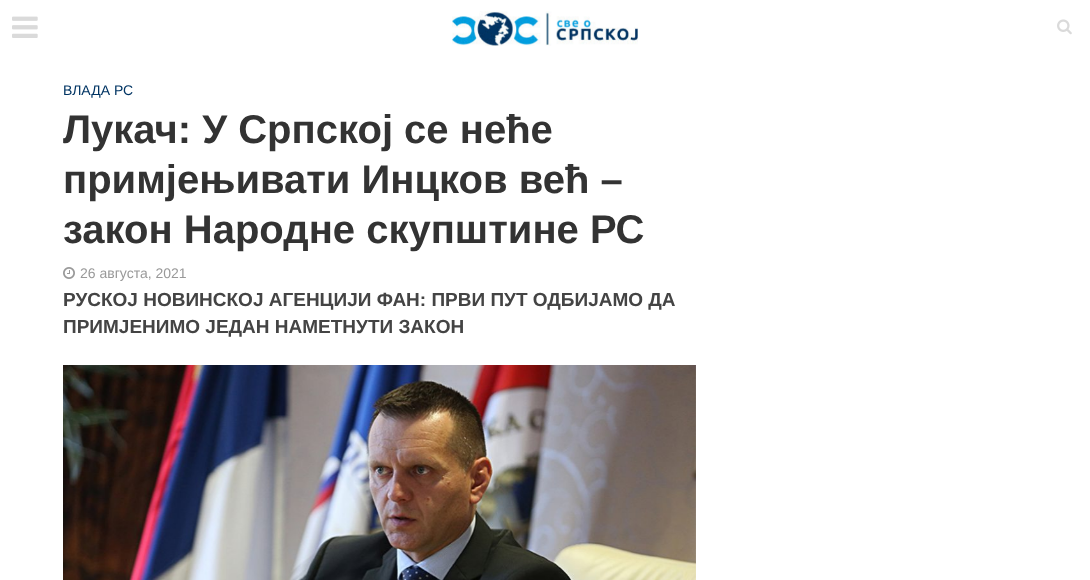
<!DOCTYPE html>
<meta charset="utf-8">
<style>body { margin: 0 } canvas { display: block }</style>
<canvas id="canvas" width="1090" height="580"></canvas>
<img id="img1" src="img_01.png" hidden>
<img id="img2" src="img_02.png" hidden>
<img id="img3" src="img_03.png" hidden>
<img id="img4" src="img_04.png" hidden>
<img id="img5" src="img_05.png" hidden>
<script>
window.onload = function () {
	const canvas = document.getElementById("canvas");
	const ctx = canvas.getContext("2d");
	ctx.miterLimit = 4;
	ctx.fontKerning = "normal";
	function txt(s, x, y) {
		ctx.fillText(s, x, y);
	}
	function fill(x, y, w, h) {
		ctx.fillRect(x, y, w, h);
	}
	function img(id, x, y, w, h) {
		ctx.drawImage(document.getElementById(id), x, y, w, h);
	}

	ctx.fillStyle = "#FFFFFF";
	fill(0, 0, 1090, 580);
	img("img1", 12, 16, 26, 22);
	img("img2", 452, 11, 186, 35);
	img("img3", 1057, 19, 15, 16);
	img("img4", 63, 267, 12, 12);
	img("img5", 63, 365, 633, 215);
	ctx.font = "14px Liberation Sans";
	ctx.fillStyle = "#003463";
	txt("ВЛАДА РС", 63, 95);
	ctx.font = "bold 40px Liberation Sans";
	ctx.fillStyle = "#333333";
	txt("Лукач: У Српској се неће", 63, 143);
	txt("примјењивати Инцков већ –", 63, 193);
	txt("закон Народне скупштине РС", 63, 243);
	ctx.font = "14px Liberation Sans";
	ctx.fillStyle = "#999999";
	txt("26 августа, 2021", 80, 278);
	ctx.font = "bold 19px Liberation Sans";
	ctx.fillStyle = "#444444";
	txt("РУСКОЈ НОВИНСКОЈ АГЕНЦИЈИ ФАН: ПРВИ ПУТ ОДБИЈАМО ДА", 63, 306);
	txt("ПРИМЈЕНИМО ЈЕДАН НАМЕТНУТИ ЗАКОН", 63, 333);
};
</script>
